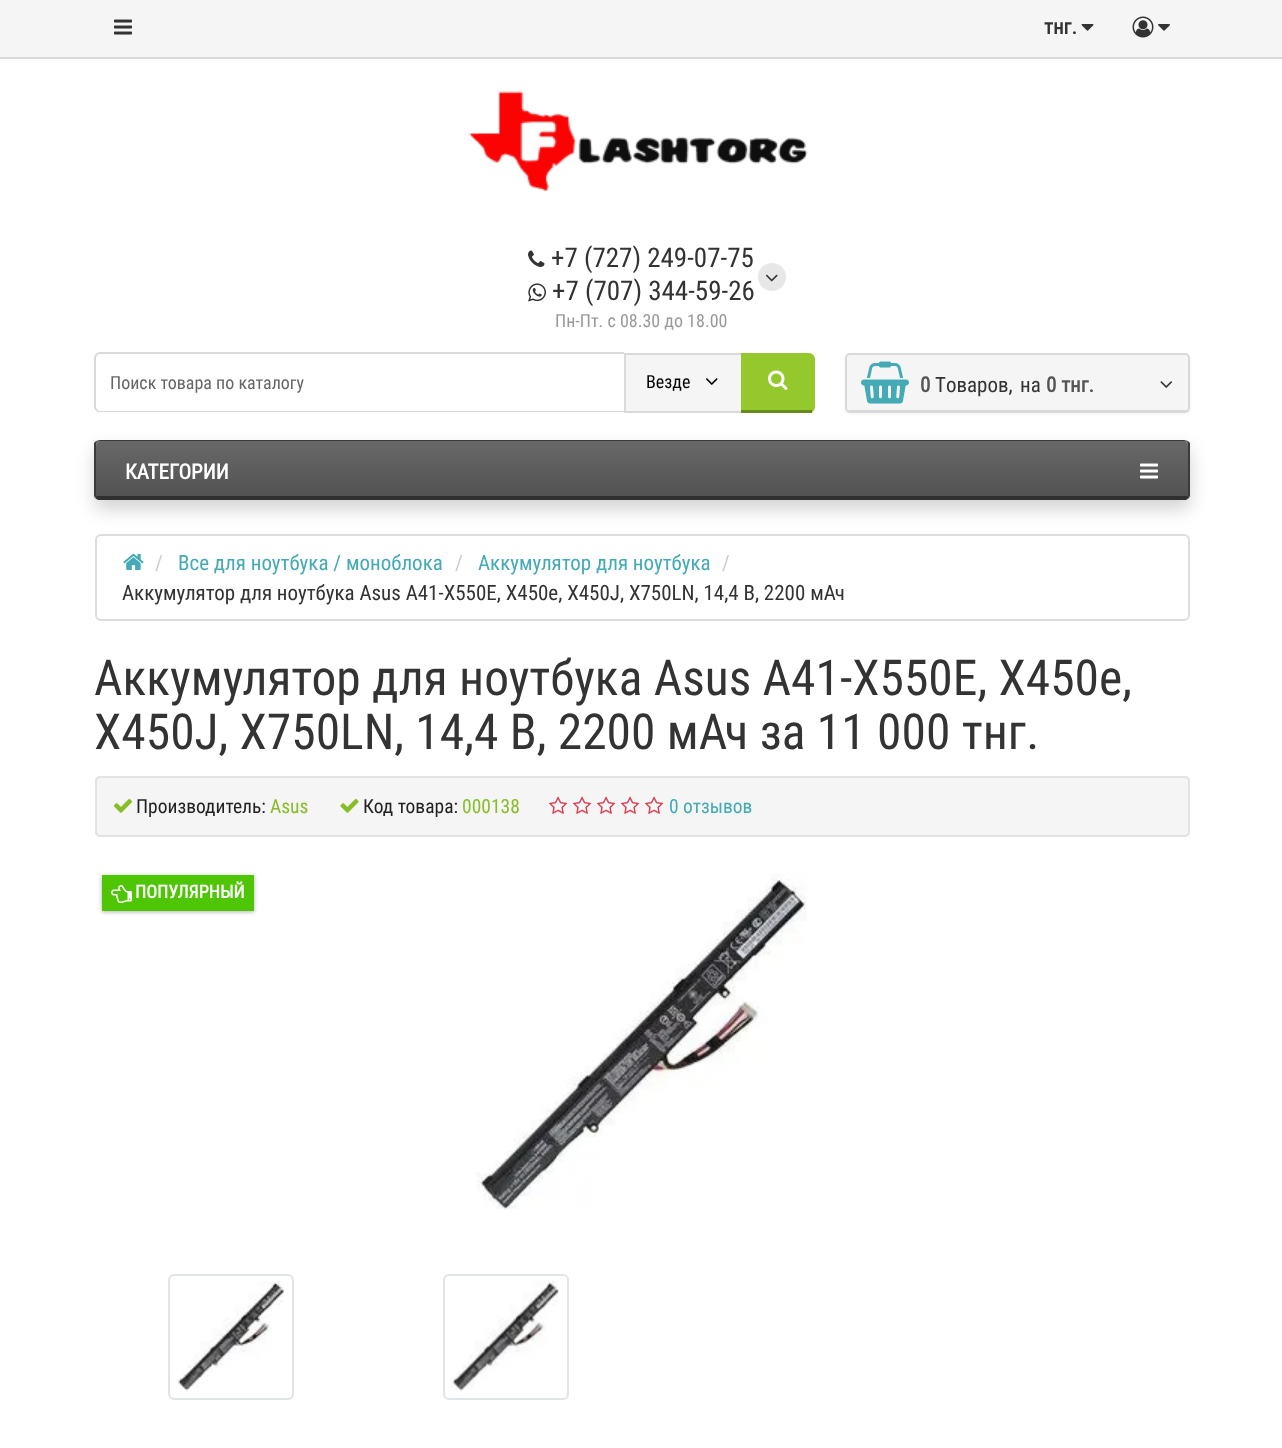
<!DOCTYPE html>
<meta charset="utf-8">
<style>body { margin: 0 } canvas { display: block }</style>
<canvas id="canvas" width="1282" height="1448"></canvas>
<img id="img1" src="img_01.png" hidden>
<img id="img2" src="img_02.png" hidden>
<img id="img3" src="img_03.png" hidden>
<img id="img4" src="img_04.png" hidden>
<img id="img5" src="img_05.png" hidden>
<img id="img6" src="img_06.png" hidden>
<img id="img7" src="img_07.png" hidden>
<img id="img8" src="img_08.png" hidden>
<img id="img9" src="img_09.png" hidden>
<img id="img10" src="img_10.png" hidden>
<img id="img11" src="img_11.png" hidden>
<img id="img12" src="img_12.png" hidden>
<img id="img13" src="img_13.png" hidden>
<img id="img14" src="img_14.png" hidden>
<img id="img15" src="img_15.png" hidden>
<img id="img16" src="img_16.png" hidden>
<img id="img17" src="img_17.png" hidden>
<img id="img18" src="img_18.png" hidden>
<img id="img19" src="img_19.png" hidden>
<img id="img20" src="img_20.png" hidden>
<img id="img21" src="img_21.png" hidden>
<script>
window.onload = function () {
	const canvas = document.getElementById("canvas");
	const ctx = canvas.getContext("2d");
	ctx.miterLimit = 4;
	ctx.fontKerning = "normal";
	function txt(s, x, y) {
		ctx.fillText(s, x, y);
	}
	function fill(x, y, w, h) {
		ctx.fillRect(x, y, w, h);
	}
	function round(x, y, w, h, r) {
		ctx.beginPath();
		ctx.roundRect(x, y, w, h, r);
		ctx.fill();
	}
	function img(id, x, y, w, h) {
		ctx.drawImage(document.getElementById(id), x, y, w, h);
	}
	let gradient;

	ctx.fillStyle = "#FFFFFF";
	fill(0, 0, 1282, 1448);
	ctx.fillStyle = "#F5F5F5";
	fill(0, 0, 1282, 57);
	ctx.fillStyle = "#D9D9D9";
	fill(0, 57, 1282, 2);
	img("img1", 114, 19, 18, 16);
	img("img2", 1081, 24, 13, 7);
	img("img3", 1132, 16, 22, 22);
	img("img4", 1158, 24, 12, 7);
	img("img5", 469, 91, 339, 101);
	img("img6", 528, 250, 17, 17);
	ctx.fillStyle = "#E7E7E7";
	ctx.beginPath();
	ctx.arc(772, 277, 15.5, 0, Math.PI * 2);
	ctx.fill();
	ctx.strokeStyle = "#FFFFFF";
	ctx.lineWidth = 3;
	ctx.stroke();
	img("img7", 765, 274, 13, 8);
	img("img8", 528, 283, 18, 19);
	ctx.fillStyle = "#D9D9D9";
	ctx.beginPath();
	ctx.moveTo(100, 352);
	ctx.lineTo(624, 352);
	ctx.lineTo(624, 412);
	ctx.lineTo(100, 412);
	ctx.bezierCurveTo(97, 412, 94, 410, 94, 406);
	ctx.lineTo(94, 358);
	ctx.bezierCurveTo(94, 355, 97, 352, 100, 352);
	ctx.closePath();
	ctx.moveTo(100, 354);
	ctx.lineTo(624, 354);
	ctx.lineTo(624, 411);
	ctx.lineTo(100, 411);
	ctx.bezierCurveTo(98, 411, 96, 409, 96, 406);
	ctx.lineTo(96, 358);
	ctx.bezierCurveTo(96, 356, 98, 354, 100, 354);
	ctx.closePath();
	ctx.fill("evenodd");
	ctx.fillStyle = "#F5F5F5";
	fill(626, 355, 115, 56);
	ctx.fillStyle = "#D9D9D9";
	fill(624, 353, 119, 2);
	fill(624, 411, 119, 2);
	fill(624, 353, 2, 60);
	img("img9", 706, 378, 12, 7);
	ctx.fillStyle = "#94C82C";
	ctx.beginPath();
	ctx.roundRect(741, 353, 74, 60, [0, 6, 6, 0]);
	ctx.fill();
	ctx.fillStyle = "#658B1D";
	fill(741, 410, 71, 3);
	img("img10", 768, 370, 20, 20);
	ctx.fillStyle = "rgba(0, 0, 0, 0.05)";
	ctx.filter = "blur(1.5px)";
	ctx.beginPath();
	ctx.roundRect(845, 354, 345, 60, 5);
	ctx.fill();
	ctx.filter = "none";
	ctx.fillStyle = "#F5F5F5";
	ctx.beginPath();
	ctx.moveTo(849, 354);
	ctx.lineTo(1185, 354);
	ctx.bezierCurveTo(1187, 354, 1188, 355, 1188, 357);
	ctx.lineTo(1188, 408);
	ctx.bezierCurveTo(1188, 409, 1187, 410, 1185, 410);
	ctx.lineTo(849, 410);
	ctx.bezierCurveTo(847, 410, 846, 409, 846, 408);
	ctx.lineTo(846, 357);
	ctx.bezierCurveTo(846, 355, 847, 354, 849, 354);
	ctx.closePath();
	ctx.fill();
	ctx.beginPath();
	ctx.roundRect(846, 354, 343, 58, 4);
	ctx.strokeStyle = "#D9D9D9";
	ctx.lineWidth = 2;
	ctx.stroke();
	ctx.fillStyle = "#D9D9D9";
	fill(848, 410, 340, 1);
	img("img11", 861, 361, 48, 43);
	img("img12", 1160, 381, 12, 7);
	ctx.beginPath();
	ctx.roundRect(96, 535, 1093, 85, 5);
	ctx.strokeStyle = "#DDDDDD";
	ctx.stroke();
	ctx.fillStyle = "rgba(0, 0, 0, 0.18)";
	ctx.filter = "blur(9px)";
	ctx.beginPath();
	ctx.roundRect(95, 449, 1095, 60, 6);
	ctx.fill();
	ctx.filter = "none";
	gradient = ctx.createLinearGradient(642, 441, 642, 497);
	gradient.addColorStop(0, "#686868");
	gradient.addColorStop(1, "#525252");
	ctx.fillStyle = gradient;
	ctx.beginPath();
	ctx.moveTo(100, 441);
	ctx.lineTo(1184, 441);
	ctx.bezierCurveTo(1186, 441, 1188, 443, 1188, 446);
	ctx.lineTo(1188, 494);
	ctx.bezierCurveTo(1188, 495, 1186, 496, 1184, 496);
	ctx.lineTo(100, 496);
	ctx.bezierCurveTo(98, 496, 96, 495, 96, 494);
	ctx.lineTo(96, 446);
	ctx.bezierCurveTo(96, 443, 98, 441, 100, 441);
	ctx.closePath();
	ctx.fill();
	ctx.fillStyle = "#3B3B3B";
	ctx.beginPath();
	ctx.moveTo(100, 440);
	ctx.lineTo(96, 441);
	ctx.lineTo(97, 442);
	ctx.lineTo(100, 441);
	ctx.lineTo(1184, 441);
	ctx.lineTo(1187, 442);
	ctx.lineTo(1188, 441);
	ctx.lineTo(1184, 440);
	ctx.closePath();
	ctx.fill();
	ctx.beginPath();
	ctx.moveTo(1188, 441);
	ctx.lineTo(1190, 443);
	ctx.lineTo(1190, 496);
	ctx.lineTo(1189, 498);
	ctx.lineTo(1187, 495);
	ctx.lineTo(1188, 494);
	ctx.lineTo(1188, 446);
	ctx.bezierCurveTo(1188, 444, 1187, 443, 1187, 442);
	ctx.closePath();
	ctx.fill();
	ctx.fillStyle = "#303030";
	ctx.beginPath();
	ctx.moveTo(98, 500);
	ctx.lineTo(95, 498);
	ctx.lineTo(97, 495);
	ctx.lineTo(100, 496);
	ctx.lineTo(1184, 496);
	ctx.lineTo(1187, 495);
	ctx.lineTo(1189, 498);
	ctx.lineTo(1186, 500);
	ctx.closePath();
	ctx.fill();
	ctx.fillStyle = "#3B3B3B";
	ctx.beginPath();
	ctx.moveTo(94, 443);
	ctx.lineTo(96, 441);
	ctx.lineTo(97, 442);
	ctx.bezierCurveTo(97, 443, 96, 444, 96, 446);
	ctx.lineTo(96, 494);
	ctx.lineTo(97, 495);
	ctx.lineTo(95, 498);
	ctx.lineTo(94, 496);
	ctx.closePath();
	ctx.fill();
	img("img13", 1140, 463, 18, 16);
	img("img14", 123, 553, 21, 17);
	ctx.fillStyle = "#F5F5F5";
	round(95, 776, 1095, 61, 5);
	ctx.fillStyle = "#E9E9E9";
	ctx.beginPath();
	ctx.moveTo(99, 778);
	ctx.lineTo(1185, 778);
	ctx.bezierCurveTo(1187, 778, 1188, 780, 1188, 782);
	ctx.lineTo(1188, 780);
	ctx.bezierCurveTo(1188, 778, 1187, 777, 1185, 777);
	ctx.lineTo(99, 777);
	ctx.bezierCurveTo(97, 777, 96, 778, 96, 780);
	ctx.lineTo(96, 782);
	ctx.bezierCurveTo(96, 780, 97, 778, 99, 778);
	ctx.closePath();
	ctx.fill();
	ctx.beginPath();
	ctx.roundRect(96, 777, 1093, 59, 4);
	ctx.strokeStyle = "#E3E3E3";
	ctx.stroke();
	img("img15", 113, 798, 20, 15);
	img("img16", 340, 798, 19, 15);
	img("img17", 549, 796, 19, 18);
	img("img17", 573, 796, 19, 18);
	img("img17", 597, 796, 19, 18);
	img("img17", 621, 796, 19, 18);
	img("img17", 645, 796, 19, 18);
	ctx.fillStyle = "rgba(0, 0, 0, 0.3)";
	ctx.filter = "blur(2px)";
	ctx.beginPath();
	ctx.rect(102, 876, 152, 36);
	ctx.fill();
	ctx.filter = "none";
	ctx.fillStyle = "#4FC605";
	fill(102, 875, 152, 36);
	img("img18", 111, 885, 21, 18);
	img("img19", 476, 873, 331, 337);
	ctx.beginPath();
	ctx.roundRect(169, 1275, 124, 124, 5);
	ctx.strokeStyle = "#E0E4E6";
	ctx.stroke();
	img("img20", 175, 1281, 109, 111);
	ctx.beginPath();
	ctx.roundRect(444, 1275, 124, 124, 5);
	ctx.stroke();
	img("img21", 450, 1280, 109, 113);
	ctx.font = "bold 21px Roboto Condensed";
	ctx.fillStyle = "#333333";
	txt("тнг.", 1044, 34);
	ctx.font = "27px Roboto Condensed";
	txt("+7 (727) 249-07-75", 551, 267);
	txt("+7 (707) 344-59-26", 552, 300);
	ctx.font = "18px Roboto Condensed";
	ctx.fillStyle = "#999999";
	txt("Пн-Пт. с 08.30 до 18.00", 555, 327);
	ctx.fillStyle = "#666666";
	txt("Поиск товара по каталогу", 110, 389);
	ctx.fillStyle = "#000000";
	txt("Везде", 646, 388);
	ctx.font = "bold 21px Roboto Condensed";
	ctx.fillStyle = "#555555";
	txt("0", 920, 392);
	ctx.font = "21px Roboto Condensed";
	ctx.fillStyle = "#333333";
	txt("Tоваров,", 935, 392);
	txt("на", 1020, 392);
	ctx.font = "bold 21px Roboto Condensed";
	ctx.fillStyle = "#555555";
	txt("0 тнг.", 1046, 392);
	ctx.fillStyle = "#FFFFFF";
	txt("КАТЕГОРИИ", 125, 479);
	ctx.font = "21px Roboto Condensed";
	ctx.fillStyle = "#CCCCCC";
	txt("/", 155, 570);
	ctx.fillStyle = "#43AAB6";
	txt("Все для ноутбука / моноблока", 178, 570);
	ctx.fillStyle = "#CCCCCC";
	txt("/", 455, 570);
	ctx.fillStyle = "#43AAB6";
	txt("Аккумулятор для ноутбука", 478, 570);
	ctx.fillStyle = "#CCCCCC";
	txt("/", 722, 570);
	ctx.fillStyle = "#333333";
	txt("Аккумулятор для ноутбука Asus A41-X550E, X450e, X450J, X750LN, 14,4 В, 2200 мАч", 122, 600);
	ctx.font = "49.5px Roboto Condensed";
	txt("Аккумулятор для ноутбука Asus A41-X550E, X450e,", 94, 695);
	txt("X450J, X750LN, 14,4 В, 2200 мАч за 11 000 тнг.", 94, 749);
	ctx.font = "19.5px Roboto Condensed";
	ctx.fillStyle = "#222222";
	txt("Производитель:", 136, 813);
	ctx.fillStyle = "#89BD27";
	txt("Asus", 270, 813);
	ctx.fillStyle = "#222222";
	txt("Код товара:", 363, 813);
	ctx.fillStyle = "#89BD27";
	txt("000138", 462, 813);
	ctx.fillStyle = "#43AAB6";
	txt("0 отзывов", 669, 813);
	ctx.font = "bold 18px Roboto Condensed";
	ctx.fillStyle = "#FFFFFF";
	txt("ПОПУЛЯРНЫЙ", 135, 898);
};
</script>
